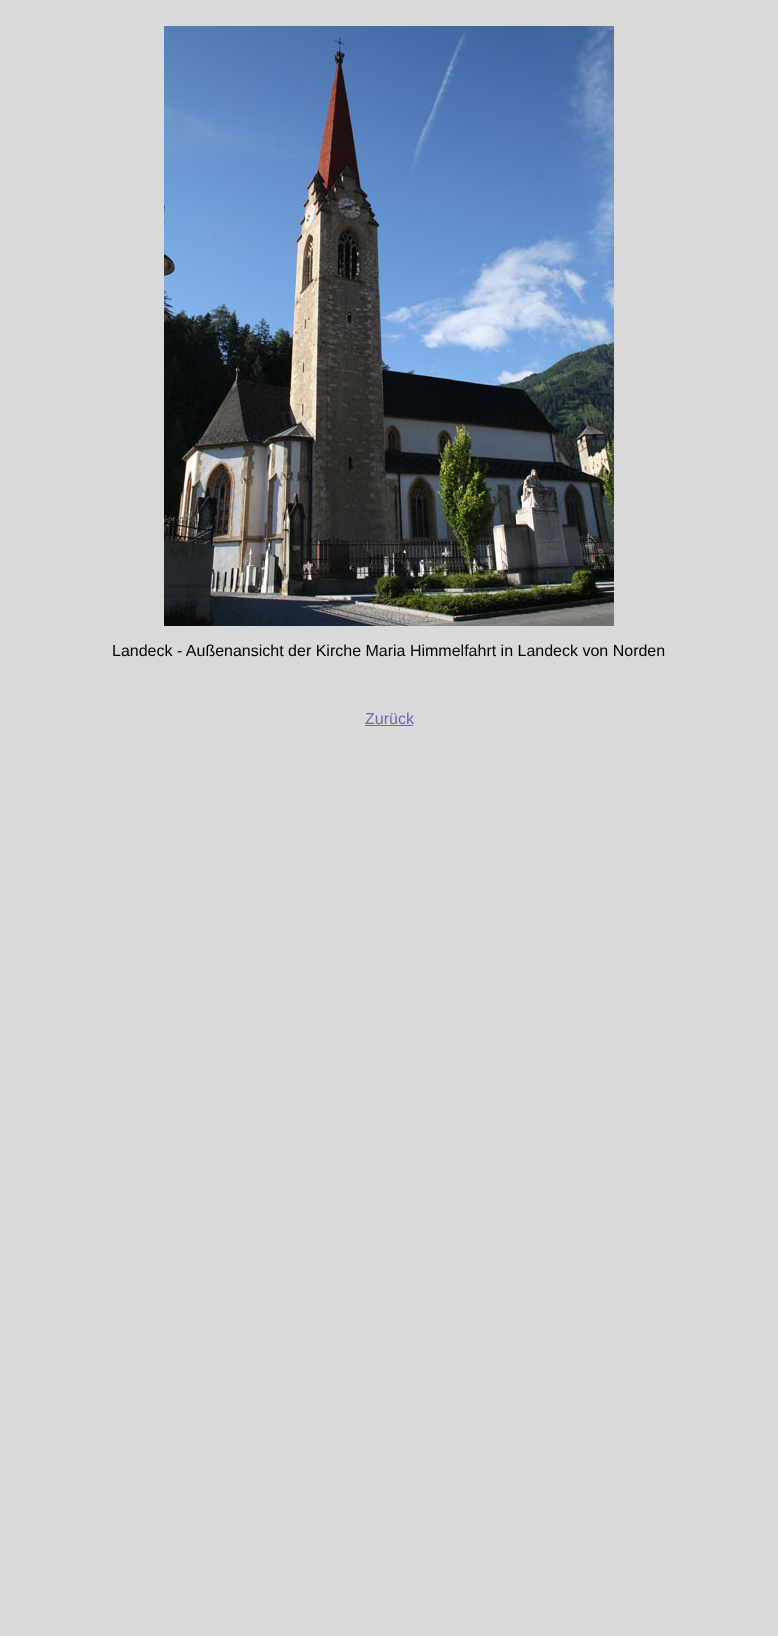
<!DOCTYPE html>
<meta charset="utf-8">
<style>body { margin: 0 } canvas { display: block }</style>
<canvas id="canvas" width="778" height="1636"></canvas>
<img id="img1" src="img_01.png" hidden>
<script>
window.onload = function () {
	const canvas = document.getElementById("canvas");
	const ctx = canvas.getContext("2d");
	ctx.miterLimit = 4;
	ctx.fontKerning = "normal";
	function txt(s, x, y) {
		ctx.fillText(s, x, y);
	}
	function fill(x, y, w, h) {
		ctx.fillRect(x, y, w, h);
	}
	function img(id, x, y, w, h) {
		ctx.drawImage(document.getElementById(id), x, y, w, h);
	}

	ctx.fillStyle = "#D9D9D9";
	fill(0, 0, 778, 1636);
	img("img1", 164, 26, 450, 600);
	ctx.fillStyle = "#6569BA";
	fill(365, 725, 48, 1);
	ctx.font = "16px Liberation Sans";
	ctx.fillStyle = "#000000";
	txt("Landeck - Außenansicht der Kirche Maria Himmelfahrt in Landeck von Norden", 112, 656);
	ctx.fillStyle = "#6569BA";
	txt("Zurück", 365, 724);
};
</script>
